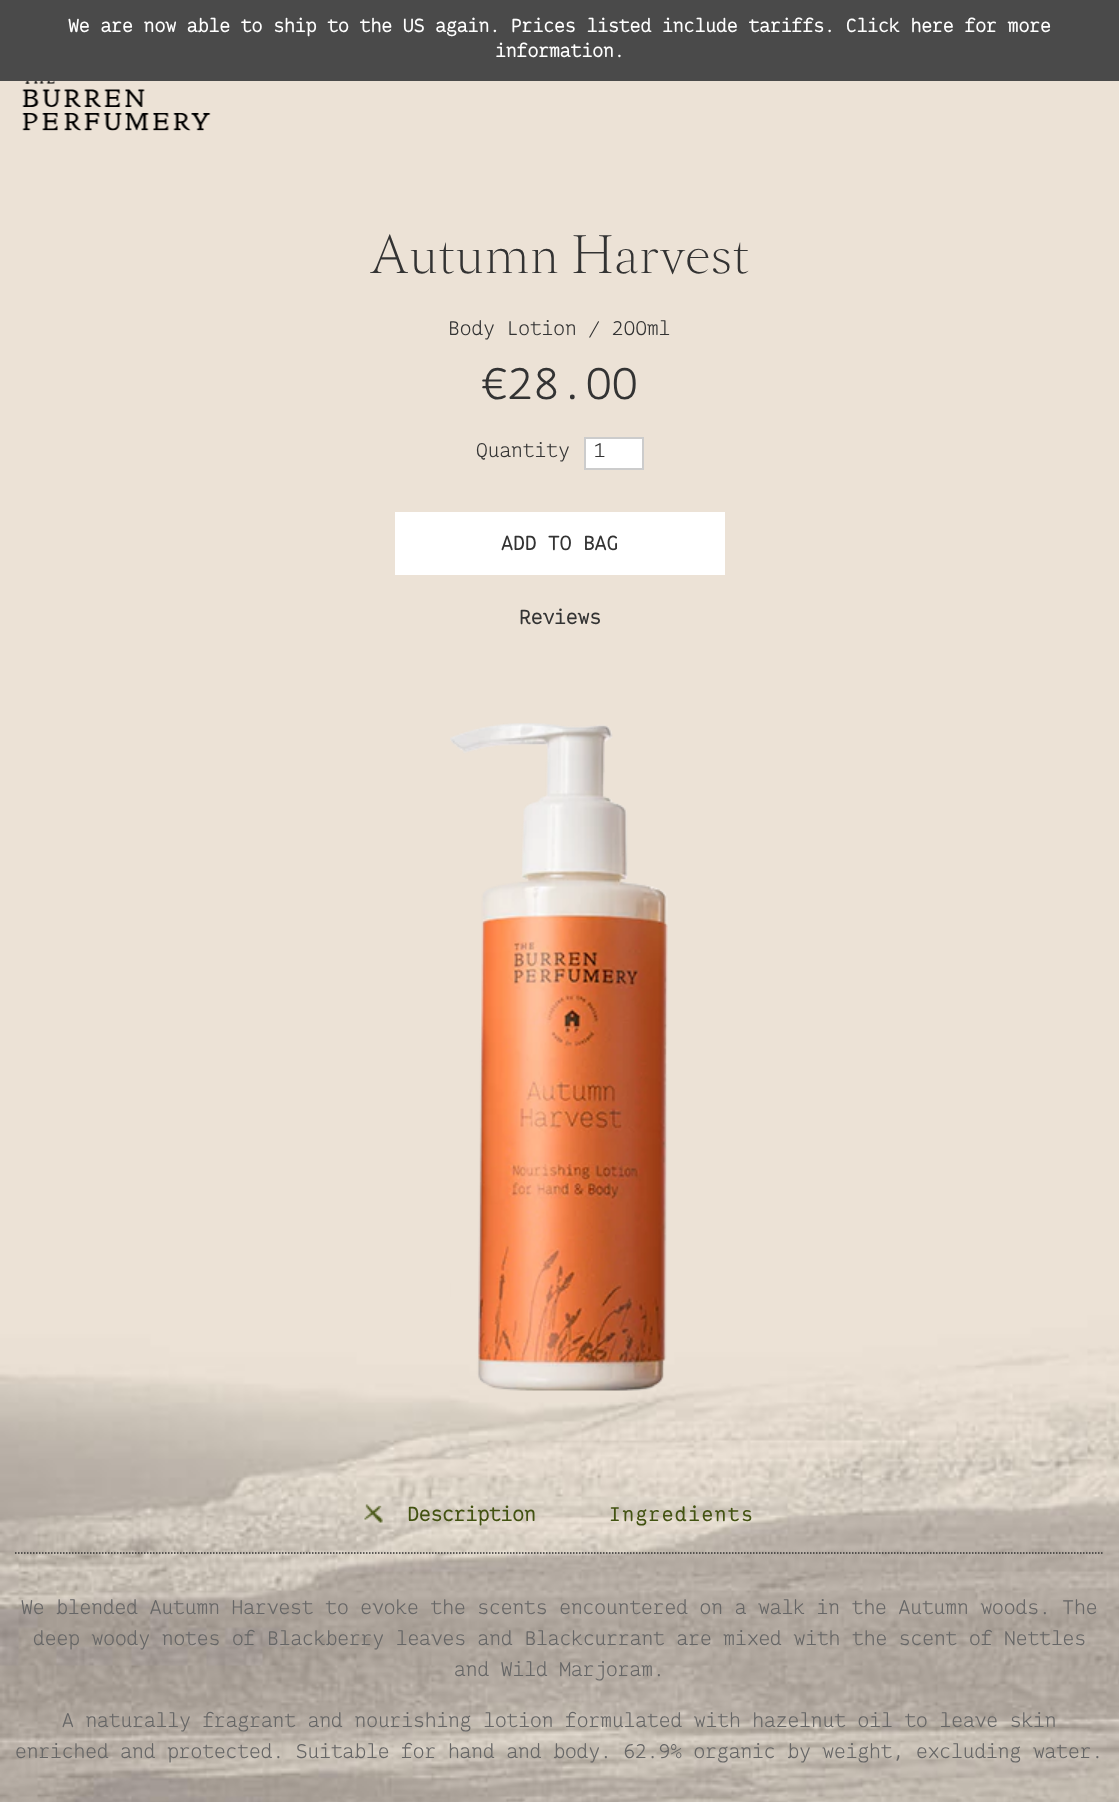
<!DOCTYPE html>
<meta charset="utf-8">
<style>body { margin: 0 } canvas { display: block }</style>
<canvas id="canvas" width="1119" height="1802"></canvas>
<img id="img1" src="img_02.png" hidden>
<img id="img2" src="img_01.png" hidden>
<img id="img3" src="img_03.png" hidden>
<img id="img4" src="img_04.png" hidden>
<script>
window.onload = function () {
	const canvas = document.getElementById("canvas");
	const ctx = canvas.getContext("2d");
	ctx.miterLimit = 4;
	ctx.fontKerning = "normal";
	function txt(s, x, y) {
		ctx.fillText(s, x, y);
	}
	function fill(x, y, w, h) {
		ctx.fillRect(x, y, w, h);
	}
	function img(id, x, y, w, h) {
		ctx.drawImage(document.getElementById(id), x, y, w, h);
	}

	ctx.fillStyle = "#FFFFFF";
	fill(0, 0, 1119, 1802);
	ctx.fillStyle = "#4A4A4A";
	fill(0, 0, 1119, 81);
	img("img1", 0, 81, 1119, 1721);
	img("img2", 22, 81, 189, 50);
	ctx.fillStyle = "#FFFFFF";
	ctx.beginPath();
	ctx.rect(585, 438, 58, 31);
	ctx.fill();
	ctx.strokeStyle = "#CCCCCC";
	ctx.lineWidth = 2;
	ctx.stroke();
	fill(395, 512, 330, 63);
	img("img3", 450, 723, 218, 668);
	ctx.beginPath();
	ctx.moveTo(15, 1553);
	ctx.lineTo(1104, 1553);
	ctx.strokeStyle = "#333333";
	ctx.lineWidth = 1.5;
	ctx.setLineDash([1.5, 1.5]);
	ctx.stroke();
	img("img4", 364, 1504, 19, 19);
	ctx.font = "bold 18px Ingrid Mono";
	txt("We are now able to ship to the US again. Prices listed include tariffs. Click here for more", 68, 32);
	txt("information.", 495, 57);
	ctx.letterSpacing = "1.5px";
	ctx.font = "300 48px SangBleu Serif";
	ctx.fillStyle = "#333333";
	txt("Autumn Harvest", 370, 273);
	ctx.letterSpacing = "0px";
	ctx.font = "19.5px Ingrid Mono";
	txt("Body Lotion / 200ml", 448, 335);
	ctx.font = "43.5px Ingrid Mono";
	txt("€28.00", 481, 399);
	ctx.font = "19.5px Ingrid Mono";
	txt("Quantity", 476, 457);
	txt("1", 594, 457);
	ctx.font = "bold 19.5px Ingrid Mono";
	txt("ADD TO BAG", 501, 550);
	txt("Reviews", 519, 624);
	ctx.fillStyle = "#425211";
	txt("Description", 407, 1521);
	ctx.letterSpacing = "1.5px";
	ctx.font = "600 19.5px Ingrid Mono";
	txt("Ingredients", 609, 1521);
	ctx.letterSpacing = "0px";
	ctx.font = "19.5px Ingrid Mono";
	ctx.fillStyle = "#666666";
	txt("We blended Autumn Harvest to evoke the scents encountered on a walk in the Autumn woods. The", 21, 1614);
	txt("deep woody notes of Blackberry leaves and Blackcurrant are mixed with the scent of Nettles", 33, 1645);
	txt("and Wild Marjoram.", 454, 1676);
	txt("A naturally fragrant and nourishing lotion formulated with hazelnut oil to leave skin", 62, 1727);
	txt("enriched and protected. Suitable for hand and body. 62.9% organic by weight, excluding water.", 15, 1758);
};
</script>
